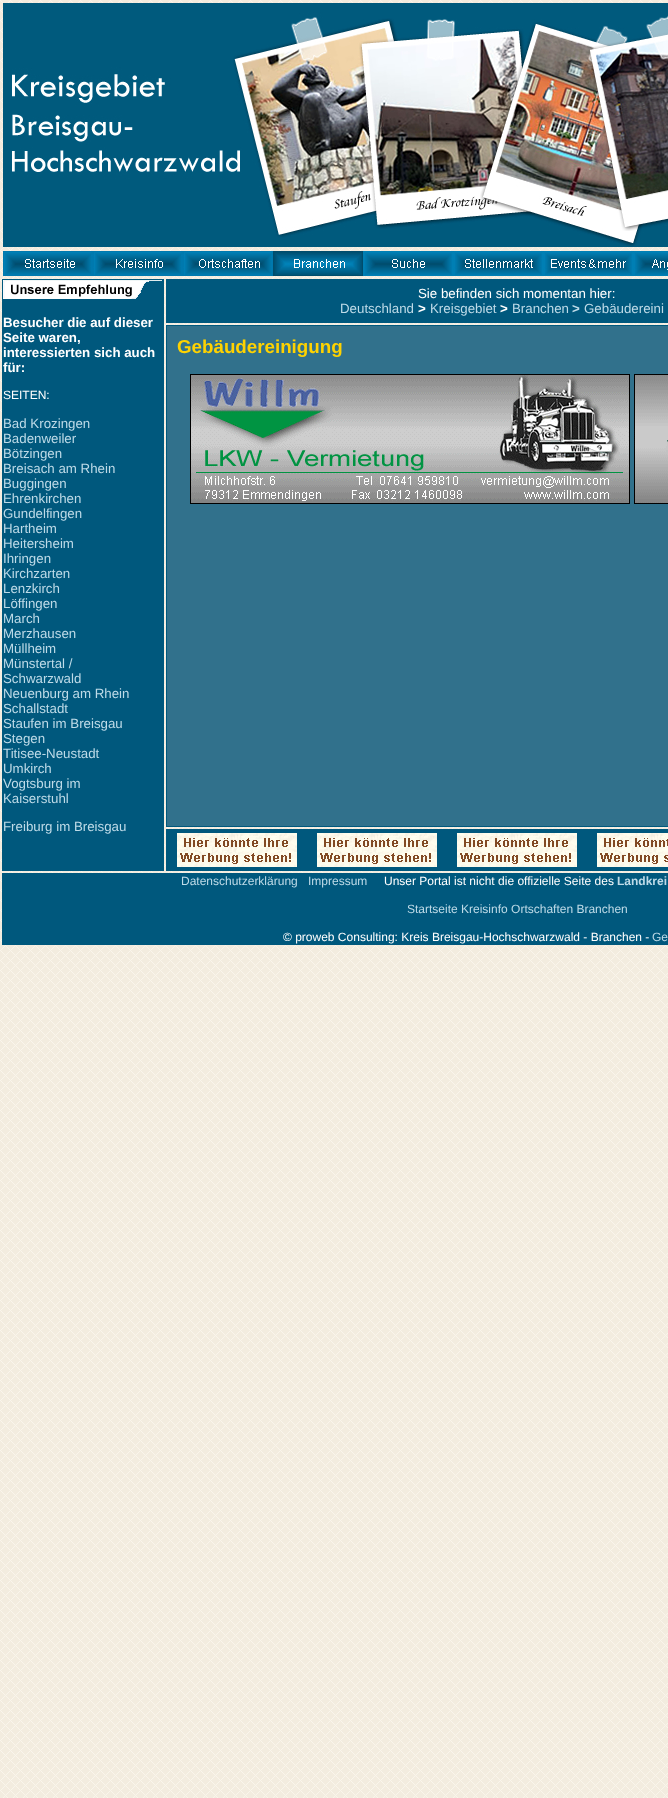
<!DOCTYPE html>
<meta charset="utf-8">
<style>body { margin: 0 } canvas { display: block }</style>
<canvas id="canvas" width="668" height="1798"></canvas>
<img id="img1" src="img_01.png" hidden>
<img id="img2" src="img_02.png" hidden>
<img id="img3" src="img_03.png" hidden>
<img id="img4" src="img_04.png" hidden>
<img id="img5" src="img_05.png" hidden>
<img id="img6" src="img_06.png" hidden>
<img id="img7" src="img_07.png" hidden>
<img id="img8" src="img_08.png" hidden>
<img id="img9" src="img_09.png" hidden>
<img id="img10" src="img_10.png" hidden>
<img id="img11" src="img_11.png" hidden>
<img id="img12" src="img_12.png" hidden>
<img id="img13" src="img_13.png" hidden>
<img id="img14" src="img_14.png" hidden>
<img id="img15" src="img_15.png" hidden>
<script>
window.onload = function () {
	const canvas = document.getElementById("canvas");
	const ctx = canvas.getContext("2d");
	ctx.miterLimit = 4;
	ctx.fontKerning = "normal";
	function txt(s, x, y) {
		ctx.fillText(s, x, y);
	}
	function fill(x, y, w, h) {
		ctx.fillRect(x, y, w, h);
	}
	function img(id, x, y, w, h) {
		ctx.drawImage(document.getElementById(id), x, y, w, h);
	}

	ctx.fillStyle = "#FFFFFF";
	fill(0, 0, 668, 1798);
	img("img1", 0, 0, 668, 1798);
	img("img2", 3, 3, 665, 244);
	img("img3", 3, 251, 90, 25);
	img("img4", 93, 251, 90, 25);
	img("img5", 183, 251, 90, 25);
	img("img6", 273, 251, 90, 25);
	img("img7", 363, 251, 90, 25);
	img("img8", 453, 251, 90, 25);
	img("img9", 543, 251, 90, 25);
	img("img10", 633, 251, 35, 25);
	ctx.fillStyle = "#00587D";
	fill(166, 279, 502, 44);
	fill(2, 279, 162, 592);
	img("img11", 3, 280, 159, 19);
	fill(166, 325, 502, 502);
	ctx.fillStyle = "#31718C";
	fill(167, 326, 501, 500);
	img("img12", 190, 374, 440, 130);
	img("img13", 634, 374, 34, 130);
	ctx.fillStyle = "#00587D";
	fill(166, 829, 502, 42);
	img("img14", 177, 833, 120, 34);
	img("img14", 317, 833, 120, 34);
	img("img14", 457, 833, 120, 34);
	img("img15", 597, 833, 71, 34);
	fill(2, 873, 666, 72);
	ctx.font = "13.3px Liberation Sans";
	ctx.fillStyle = "#FFFFFF";
	txt("Sie befinden sich momentan hier:", 418, 298);
	ctx.fillStyle = "#BEDBE8";
	txt("Deutschland", 340, 313);
	ctx.font = "bold 13.3px Liberation Sans";
	ctx.fillStyle = "#FFFFFF";
	txt(">", 418, 313);
	ctx.font = "13.3px Liberation Sans";
	ctx.fillStyle = "#BEDBE8";
	txt("Kreisgebiet", 430, 313);
	ctx.font = "bold 13.3px Liberation Sans";
	ctx.fillStyle = "#FFFFFF";
	txt(">", 500, 313);
	ctx.font = "13.3px Liberation Sans";
	ctx.fillStyle = "#BEDBE8";
	txt("Branchen", 512, 313);
	ctx.font = "bold 13.3px Liberation Sans";
	txt(">", 572, 313);
	ctx.font = "13.3px Liberation Sans";
	txt("Gebäudereini", 584, 313);
	ctx.font = "bold 13.3px Liberation Sans";
	ctx.fillStyle = "#FFFFFF";
	txt("Besucher die auf dieser", 3, 327);
	txt("Seite waren,", 3, 342);
	txt("interessierten sich auch", 3, 357);
	txt("für:", 3, 372);
	ctx.font = "12px Liberation Sans";
	txt("SEITEN:", 3, 399);
	ctx.font = "13.3px Liberation Sans";
	ctx.fillStyle = "#BEDBE8";
	txt("Bad Krozingen", 3, 428);
	txt("Badenweiler", 3, 443);
	txt("Bötzingen", 3, 458);
	txt("Breisach am Rhein", 3, 473);
	txt("Buggingen", 3, 488);
	txt("Ehrenkirchen", 3, 503);
	txt("Gundelfingen", 3, 518);
	txt("Hartheim", 3, 533);
	txt("Heitersheim", 3, 548);
	txt("Ihringen", 3, 563);
	txt("Kirchzarten", 3, 578);
	txt("Lenzkirch", 3, 593);
	txt("Löffingen", 3, 608);
	txt("March", 3, 623);
	txt("Merzhausen", 3, 638);
	txt("Müllheim", 3, 653);
	txt("Münstertal /", 3, 668);
	txt("Schwarzwald", 3, 683);
	txt("Neuenburg am Rhein", 3, 698);
	txt("Schallstadt", 3, 713);
	txt("Staufen im Breisgau", 3, 728);
	txt("Stegen", 3, 743);
	txt("Titisee-Neustadt", 3, 758);
	txt("Umkirch", 3, 773);
	txt("Vogtsburg im", 3, 788);
	txt("Kaiserstuhl", 3, 803);
	txt("Freiburg im Breisgau", 3, 831);
	ctx.font = "bold 18.75px Liberation Sans";
	ctx.fillStyle = "#FED201";
	txt("Gebäudereinigung", 177, 353);
	ctx.font = "12px Liberation Sans";
	ctx.fillStyle = "#BEDBE8";
	txt("Datenschutzerklärung", 181, 885);
	txt("Impressum", 308, 885);
	ctx.fillStyle = "#FFFFFF";
	txt("Unser Portal ist nicht die offizielle Seite des", 384, 885);
	ctx.font = "bold 12px Liberation Sans";
	ctx.fillStyle = "#BEDBE8";
	txt("Landkrei", 617, 885);
	ctx.font = "12px Liberation Sans";
	txt("Startseite Kreisinfo Ortschaften Branchen", 407, 913);
	ctx.fillStyle = "#FFFFFF";
	txt("© proweb Consulting: Kreis Breisgau-Hochschwarzwald - Branchen -", 283, 941);
	ctx.fillStyle = "#BEDBE8";
	txt("Ge", 652, 941);
};
</script>
